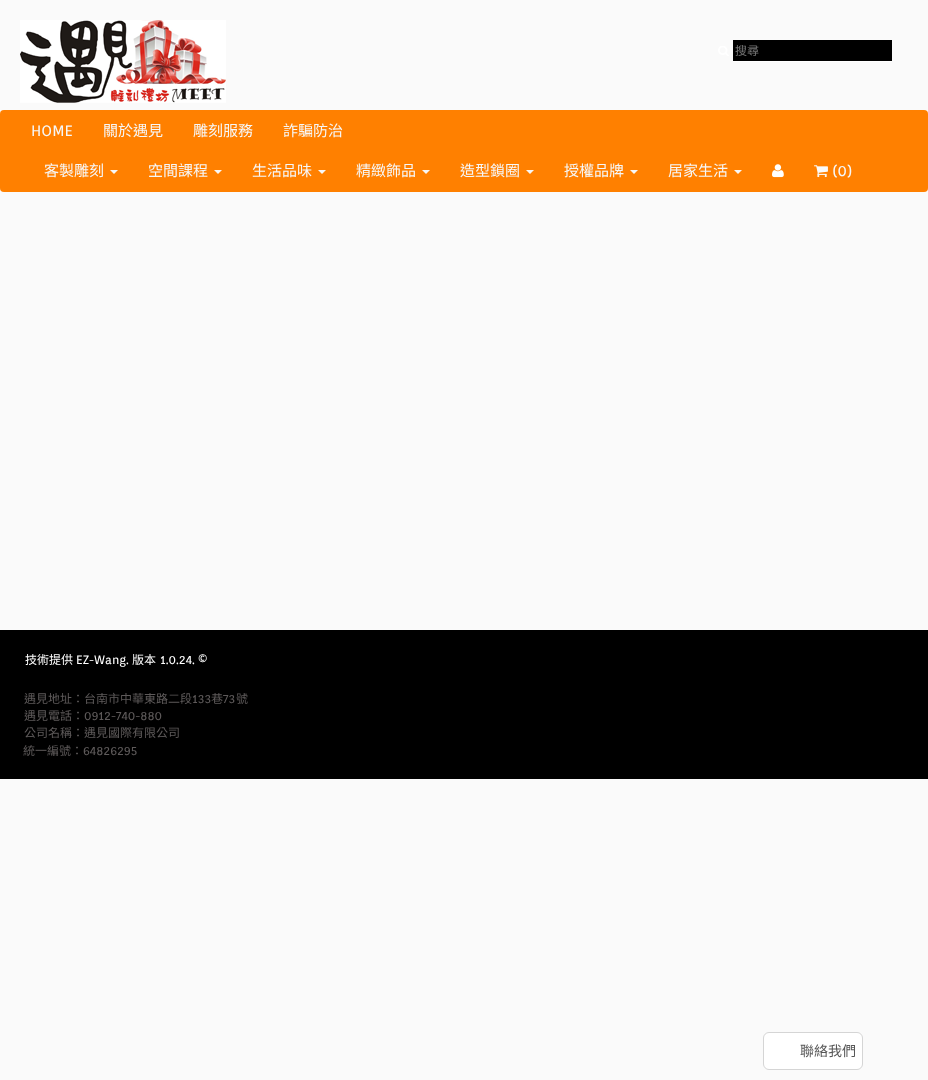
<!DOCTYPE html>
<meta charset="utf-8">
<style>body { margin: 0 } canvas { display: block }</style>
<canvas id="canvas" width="928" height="1080"></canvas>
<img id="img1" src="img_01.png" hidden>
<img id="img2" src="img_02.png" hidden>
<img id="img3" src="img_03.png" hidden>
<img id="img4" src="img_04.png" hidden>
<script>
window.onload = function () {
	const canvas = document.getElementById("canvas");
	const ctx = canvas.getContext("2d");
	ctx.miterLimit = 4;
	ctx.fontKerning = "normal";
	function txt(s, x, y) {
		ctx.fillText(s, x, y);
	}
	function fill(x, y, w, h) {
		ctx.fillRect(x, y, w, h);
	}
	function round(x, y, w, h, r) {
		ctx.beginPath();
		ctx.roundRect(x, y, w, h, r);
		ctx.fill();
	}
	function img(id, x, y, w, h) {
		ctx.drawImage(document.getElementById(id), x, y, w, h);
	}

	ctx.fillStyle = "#FAFAFA";
	fill(0, 0, 928, 1080);
	img("img1", 20, 20, 206, 83);
	img("img2", 718, 46, 11, 10);
	ctx.fillStyle = "#000000";
	fill(733, 40, 159, 21);
	ctx.fillStyle = "#FFFFFF";
	fill(733, 61, 159, 1);
	ctx.fillStyle = "#FF8000";
	round(0, 110, 928, 82, 4);
	ctx.fillStyle = "#F7F7F7";
	ctx.beginPath();
	ctx.moveTo(110, 170);
	ctx.lineTo(118, 170);
	ctx.lineTo(114, 174);
	ctx.closePath();
	ctx.fill();
	ctx.beginPath();
	ctx.moveTo(214, 170);
	ctx.lineTo(222, 170);
	ctx.lineTo(218, 174);
	ctx.closePath();
	ctx.fill();
	ctx.beginPath();
	ctx.moveTo(318, 170);
	ctx.lineTo(326, 170);
	ctx.lineTo(322, 174);
	ctx.closePath();
	ctx.fill();
	ctx.beginPath();
	ctx.moveTo(422, 170);
	ctx.lineTo(430, 170);
	ctx.lineTo(426, 174);
	ctx.closePath();
	ctx.fill();
	ctx.beginPath();
	ctx.moveTo(526, 170);
	ctx.lineTo(534, 170);
	ctx.lineTo(530, 174);
	ctx.closePath();
	ctx.fill();
	ctx.beginPath();
	ctx.moveTo(630, 170);
	ctx.lineTo(638, 170);
	ctx.lineTo(634, 174);
	ctx.closePath();
	ctx.fill();
	ctx.beginPath();
	ctx.moveTo(734, 170);
	ctx.lineTo(742, 170);
	ctx.lineTo(738, 174);
	ctx.closePath();
	ctx.fill();
	img("img3", 772, 164, 12, 14);
	img("img4", 814, 165, 14, 13);
	ctx.fillStyle = "#000000";
	fill(0, 630, 928, 149);
	ctx.fillStyle = "#FFFFFF";
	ctx.beginPath();
	ctx.roundRect(763.5, 1032.5, 99, 37, 5.5);
	ctx.fill();
	ctx.strokeStyle = "#D5D5D5";
	ctx.stroke();
	ctx.font = "12px Noto Sans CJK TC";
	ctx.fillStyle = "#757575";
	txt("搜尋", 735, 55);
	ctx.font = "15px Orienta";
	ctx.fillStyle = "#F7F7F7";
	txt("HOME", 31, 136);
	ctx.font = "15px Noto Sans CJK TC";
	txt("關於遇見", 103, 136);
	txt("雕刻服務", 193, 136);
	txt("詐騙防治", 283, 136);
	txt("客製雕刻", 44, 176);
	txt("空間課程", 148, 176);
	txt("生活品味", 252, 176);
	txt("精緻飾品", 356, 176);
	txt("造型鎖圈", 460, 176);
	txt("授權品牌", 564, 176);
	txt("居家生活", 668, 176);
	ctx.font = "15px Orienta";
	txt("(0)", 832, 176);
	ctx.font = "12px Noto Sans CJK TC";
	ctx.fillStyle = "#FFFFFF";
	txt("技術提供", 25, 664);
	ctx.font = "12px Orienta";
	txt("EZ-Wang.", 76, 664);
	ctx.font = "12px Noto Sans CJK TC";
	txt("版本", 132, 664);
	ctx.font = "12px Orienta";
	txt("1.0.24. ©", 160, 664);
	ctx.font = "12px Noto Sans CJK TC";
	ctx.fillStyle = "#5E5A5A";
	txt("遇見地址：台南市中華東路二段", 24, 703);
	ctx.font = "12px Orienta";
	txt("133", 192, 703);
	ctx.font = "12px Noto Sans CJK TC";
	txt("巷", 211, 703);
	ctx.font = "12px Orienta";
	txt("73", 223, 703);
	ctx.font = "12px Noto Sans CJK TC";
	txt("號", 236, 703);
	txt("遇見電話：", 24, 720);
	ctx.font = "12px Orienta";
	txt("0912-740-880", 84, 720);
	ctx.font = "12px Noto Sans CJK TC";
	txt("公司名稱：遇見國際有限公司", 24, 737);
	txt("統一編號：", 23, 755);
	ctx.font = "12px Orienta";
	txt("64826295", 83, 755);
	ctx.font = "14px Noto Sans CJK TC";
	ctx.fillStyle = "#575757";
	txt("聯絡我們", 800, 1056);
};
</script>
